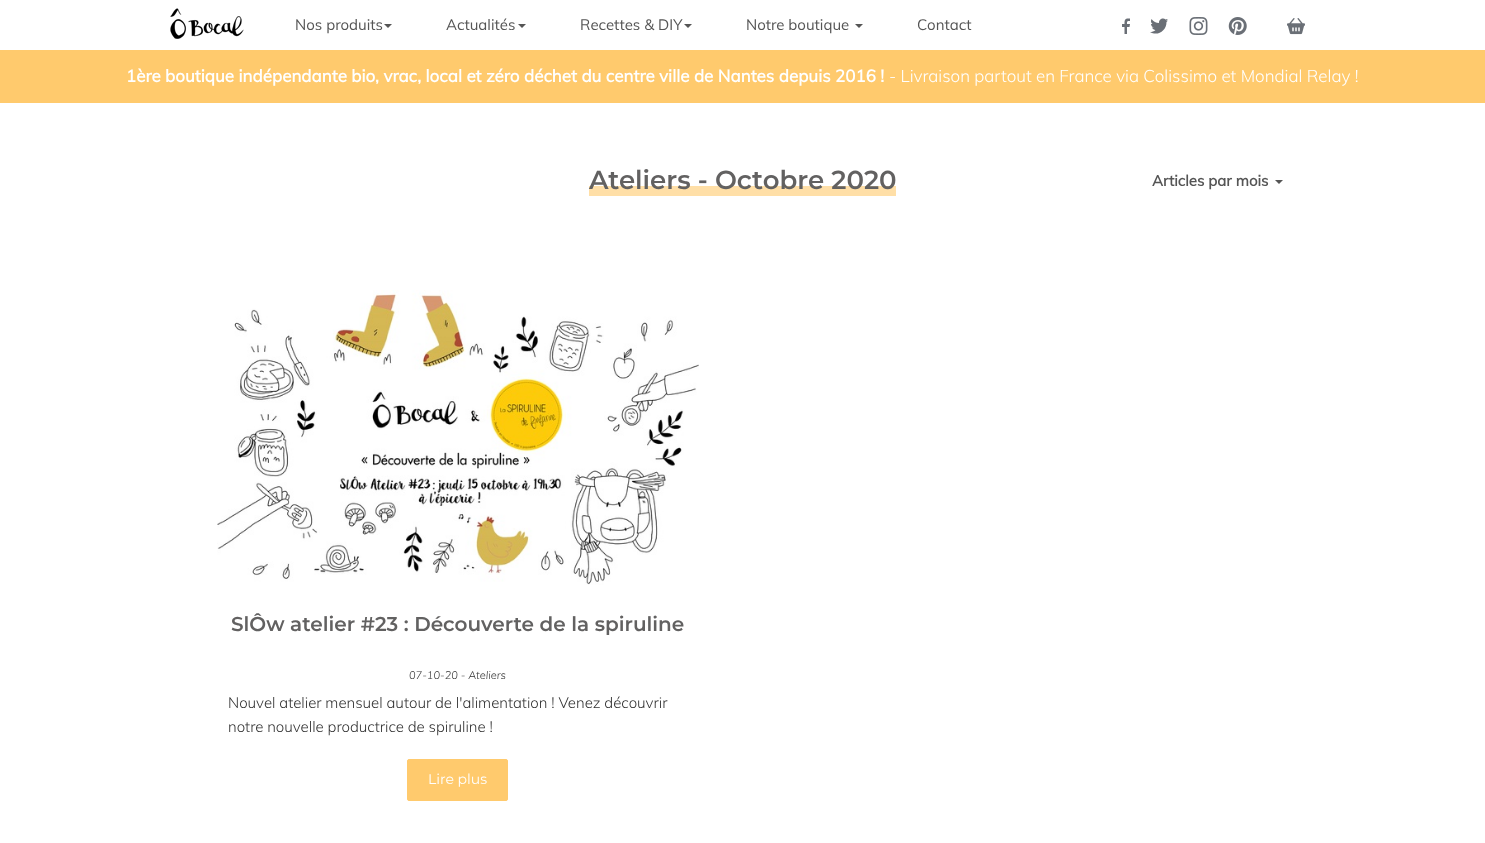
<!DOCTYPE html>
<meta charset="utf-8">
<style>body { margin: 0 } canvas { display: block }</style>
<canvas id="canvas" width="1485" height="843"></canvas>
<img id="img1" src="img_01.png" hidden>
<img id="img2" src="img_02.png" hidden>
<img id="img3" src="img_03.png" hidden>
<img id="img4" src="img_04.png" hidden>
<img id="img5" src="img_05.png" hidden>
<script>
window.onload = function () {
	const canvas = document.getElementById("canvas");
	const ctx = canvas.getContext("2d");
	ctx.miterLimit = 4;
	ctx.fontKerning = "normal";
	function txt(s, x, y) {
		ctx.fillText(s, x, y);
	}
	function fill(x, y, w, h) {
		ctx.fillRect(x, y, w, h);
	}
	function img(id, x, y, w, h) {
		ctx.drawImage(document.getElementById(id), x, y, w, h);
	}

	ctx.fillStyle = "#FFFFFF";
	fill(0, 0, 1485, 843);
	img("img1", 170, 8, 74, 31);
	ctx.fillStyle = "#555555";
	ctx.beginPath();
	ctx.moveTo(384, 24);
	ctx.lineTo(392, 24);
	ctx.lineTo(388, 28);
	ctx.closePath();
	ctx.fill();
	ctx.beginPath();
	ctx.moveTo(518, 24);
	ctx.lineTo(526, 24);
	ctx.lineTo(522, 28);
	ctx.closePath();
	ctx.fill();
	ctx.beginPath();
	ctx.moveTo(684, 24);
	ctx.lineTo(692, 24);
	ctx.lineTo(688, 28);
	ctx.closePath();
	ctx.fill();
	ctx.beginPath();
	ctx.moveTo(855, 24);
	ctx.lineTo(863, 24);
	ctx.lineTo(859, 28);
	ctx.closePath();
	ctx.fill();
	ctx.fillStyle = "#6A6F76";
	ctx.beginPath();
	ctx.moveTo(1127, 34);
	ctx.lineTo(1127, 27);
	ctx.lineTo(1129.5, 27);
	ctx.lineTo(1130, 24);
	ctx.lineTo(1127, 24);
	ctx.bezierCurveTo(1127, 21, 1127, 21, 1130, 21);
	ctx.lineTo(1130, 18.5);
	ctx.bezierCurveTo(1125, 18, 1124.5, 19.5, 1124.5, 24);
	ctx.lineTo(1122, 24);
	ctx.lineTo(1122, 27);
	ctx.lineTo(1124.5, 27);
	ctx.lineTo(1124.5, 34);
	ctx.closePath();
	ctx.moveTo(1168, 20.5);
	ctx.lineTo(1166, 21);
	ctx.bezierCurveTo(1167, 20.5, 1167.5, 19.5, 1167.5, 19);
	ctx.lineTo(1165.5, 19.5);
	ctx.bezierCurveTo(1163, 17, 1158.5, 19.5, 1159, 23);
	ctx.bezierCurveTo(1156, 23, 1153.5, 21.5, 1151.5, 19);
	ctx.bezierCurveTo(1150.5, 21, 1151, 23, 1152.5, 24);
	ctx.lineTo(1151, 24);
	ctx.bezierCurveTo(1151, 25.5, 1152, 27, 1154, 27.5);
	ctx.lineTo(1152, 27.5);
	ctx.bezierCurveTo(1152.5, 29, 1154, 30, 1155.5, 30);
	ctx.bezierCurveTo(1154, 31.5, 1152, 32, 1150, 32);
	ctx.bezierCurveTo(1157.5, 36.5, 1166.5, 31, 1166.5, 22);
	ctx.lineTo(1168, 20.5);
	ctx.fill("evenodd");
	img("img2", 1189, 17, 19, 18);
	img("img3", 1228, 17, 19, 18);
	img("img4", 1287, 18, 18, 17);
	ctx.fillStyle = "#FFCA6D";
	fill(0, 50, 1485, 53);
	ctx.fillStyle = "#FFDFA7";
	fill(589, 186, 307, 10);
	ctx.fillStyle = "#555555";
	ctx.beginPath();
	ctx.moveTo(1275, 180);
	ctx.lineTo(1283, 180);
	ctx.lineTo(1279, 184);
	ctx.closePath();
	ctx.fill();
	img("img5", 217, 290, 482, 295);
	ctx.fillStyle = "#FFCA6D";
	ctx.beginPath();
	ctx.roundRect(407.5, 759.5, 100, 41, 1.5);
	ctx.fill();
	ctx.strokeStyle = "#FFCA6D";
	ctx.stroke();
	ctx.font = "15px Muli";
	ctx.fillStyle = "#555555";
	txt("Nos produits", 295, 30);
	txt("Actualités", 446, 30);
	txt("Recettes & DIY", 580, 30);
	txt("Notre boutique", 746, 30);
	txt("Contact", 917, 30);
	ctx.font = "bold 17px Muli";
	ctx.fillStyle = "#FFFFFF";
	txt("1ère boutique indépendante bio, vrac, local et zéro déchet du centre ville de Nantes depuis 2016 !", 126, 82);
	ctx.font = "300 17px Muli";
	txt("- Livraison partout en France via Colissimo et Mondial Relay !", 889, 82);
	ctx.font = "600 26px Montserrat";
	ctx.fillStyle = "#626161";
	txt("Ateliers - Octobre 2020", 589, 189);
	ctx.font = "bold 15px Muli";
	ctx.fillStyle = "#555555";
	txt("Articles par mois", 1152, 186);
	ctx.font = "600 20px Montserrat";
	ctx.fillStyle = "#626161";
	txt("SlÔw atelier #23 : Découverte de la spiruline", 231, 631);
	ctx.font = "italic 300 11px Muli";
	ctx.fillStyle = "#333333";
	txt("07-10-20 - Ateliers", 409, 679);
	ctx.font = "300 15px Muli";
	txt("Nouvel atelier mensuel autour de l'alimentation ! Venez découvrir", 228, 708);
	txt("notre nouvelle productrice de spiruline !", 228, 732);
	ctx.font = "14px Montserrat";
	ctx.fillStyle = "#FFFFFF";
	txt("Lire plus", 428, 784);
};
</script>
